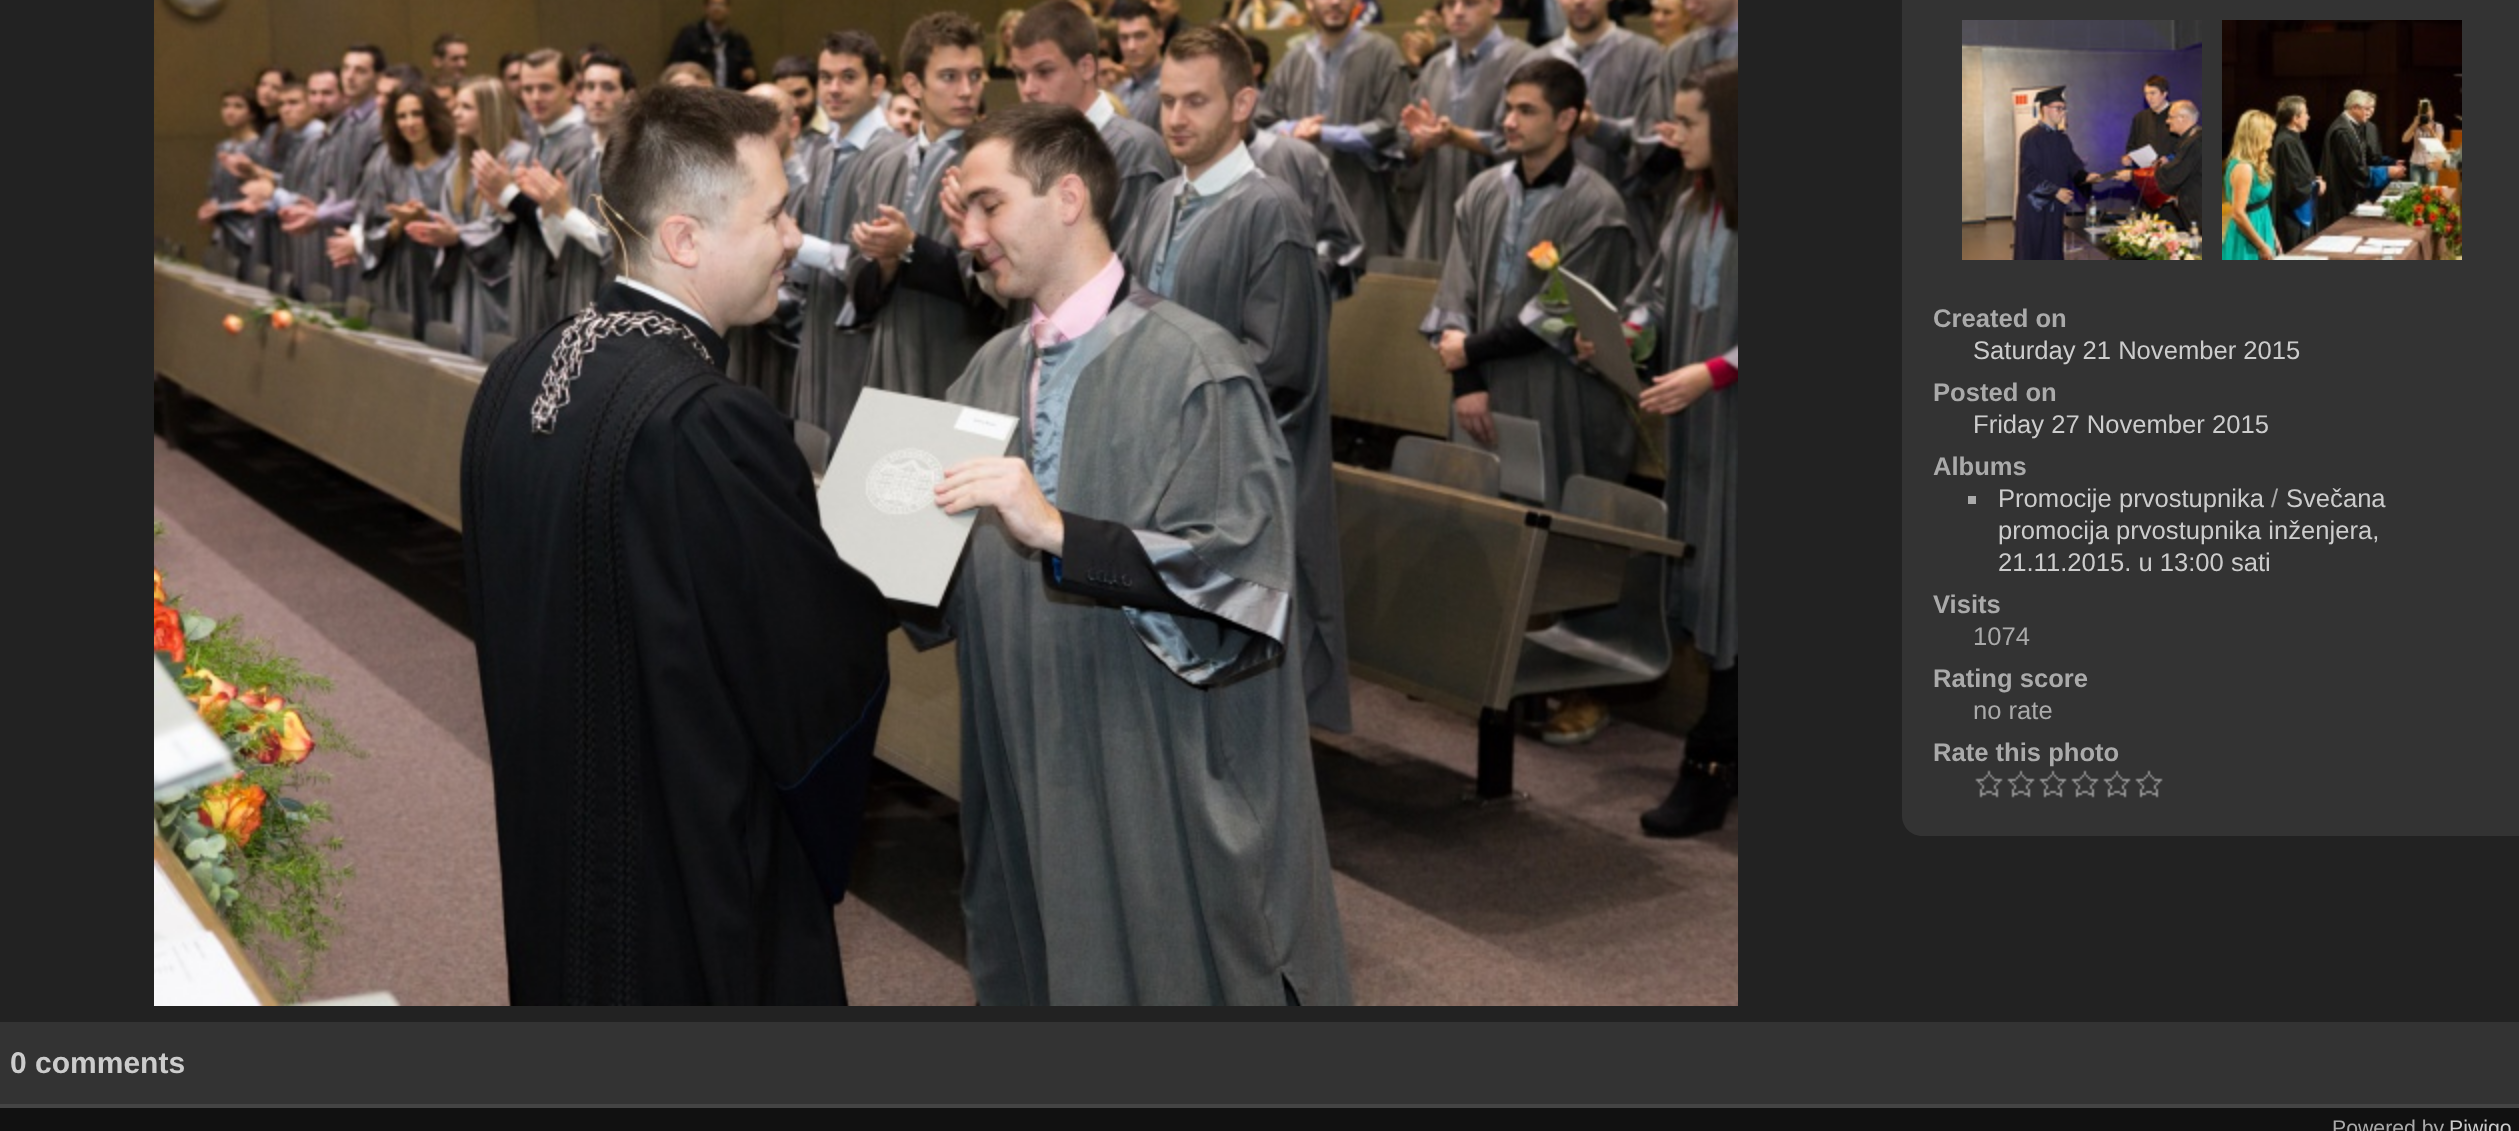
<!DOCTYPE html>
<meta charset="utf-8">
<style>body { margin: 0 } canvas { display: block }</style>
<canvas id="canvas" width="2519" height="1131"></canvas>
<img id="img1" src="img_01.png" hidden>
<img id="img2" src="img_02.png" hidden>
<img id="img3" src="img_03.png" hidden>
<img id="img4" src="img_04.png" hidden>
<script>
window.onload = function () {
	const canvas = document.getElementById("canvas");
	const ctx = canvas.getContext("2d");
	ctx.miterLimit = 4;
	ctx.fontKerning = "normal";
	function txt(s, x, y) {
		ctx.fillText(s, x, y);
	}
	function fill(x, y, w, h) {
		ctx.fillRect(x, y, w, h);
	}
	function img(id, x, y, w, h) {
		ctx.drawImage(document.getElementById(id), x, y, w, h);
	}

	ctx.fillStyle = "#111111";
	fill(0, 0, 2519, 1131);
	ctx.fillStyle = "#222222";
	fill(0, 0, 2519, 1022);
	ctx.fillStyle = "#444444";
	fill(0, 1104, 2519, 4);
	img("img1", 154, 0, 1584, 1006);
	ctx.fillStyle = "#333333";
	ctx.beginPath();
	ctx.moveTo(1922, -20);
	ctx.lineTo(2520, -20);
	ctx.lineTo(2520, 836);
	ctx.lineTo(1922, 836);
	ctx.bezierCurveTo(1911, 836, 1902, 827, 1902, 816);
	ctx.lineTo(1902, 0);
	ctx.bezierCurveTo(1902, -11, 1911, -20, 1922, -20);
	ctx.closePath();
	ctx.fill();
	img("img2", 1962, 20, 240, 240);
	img("img3", 2222, 20, 240, 240);
	ctx.fillStyle = "#AAAAAA";
	fill(1968, 496, 8, 8);
	img("img4", 1975, 770, 28, 28);
	img("img4", 2007, 770, 28, 28);
	img("img4", 2039, 770, 28, 28);
	img("img4", 2071, 770, 28, 28);
	img("img4", 2103, 770, 28, 28);
	img("img4", 2135, 770, 28, 28);
	ctx.fillStyle = "#333333";
	fill(0, 1022, 2519, 82);
	ctx.font = "bold 25.6px Liberation Sans";
	ctx.fillStyle = "#AAAAAA";
	txt("Created on", 1933, 327);
	ctx.font = "25.6px Liberation Sans";
	ctx.fillStyle = "#CCCCCC";
	txt("Saturday 21 November 2015", 1973, 359);
	ctx.font = "bold 25.6px Liberation Sans";
	ctx.fillStyle = "#AAAAAA";
	txt("Posted on", 1933, 401);
	ctx.font = "25.6px Liberation Sans";
	ctx.fillStyle = "#CCCCCC";
	txt("Friday 27 November 2015", 1973, 433);
	ctx.font = "bold 25.6px Liberation Sans";
	ctx.fillStyle = "#AAAAAA";
	txt("Albums", 1933, 475);
	ctx.font = "25.6px Liberation Sans";
	ctx.fillStyle = "#CCCCCC";
	txt("Promocije prvostupnika", 1998, 507);
	ctx.fillStyle = "#AAAAAA";
	txt("/", 2271, 507);
	ctx.fillStyle = "#CCCCCC";
	txt("Svečana", 2286, 507);
	txt("promocija prvostupnika inženjera,", 1998, 539);
	txt("21.11.2015. u 13:00 sati", 1998, 571);
	ctx.font = "bold 25.6px Liberation Sans";
	ctx.fillStyle = "#AAAAAA";
	txt("Visits", 1933, 613);
	ctx.font = "25.6px Liberation Sans";
	txt("1074", 1973, 645);
	ctx.font = "bold 25.6px Liberation Sans";
	txt("Rating score", 1933, 687);
	ctx.font = "25.6px Liberation Sans";
	txt("no rate", 1973, 719);
	ctx.font = "bold 25.6px Liberation Sans";
	txt("Rate this photo", 1933, 761);
	ctx.font = "bold 30px Liberation Sans";
	ctx.fillStyle = "#CCCCCC";
	txt("0 comments", 10, 1073);
	ctx.font = "21.25px Liberation Sans";
	ctx.fillStyle = "#AAAAAA";
	txt("Powered by", 2332, 1135);
	ctx.fillStyle = "#CCCCCC";
	txt("Piwigo", 2449, 1135);
};
</script>
